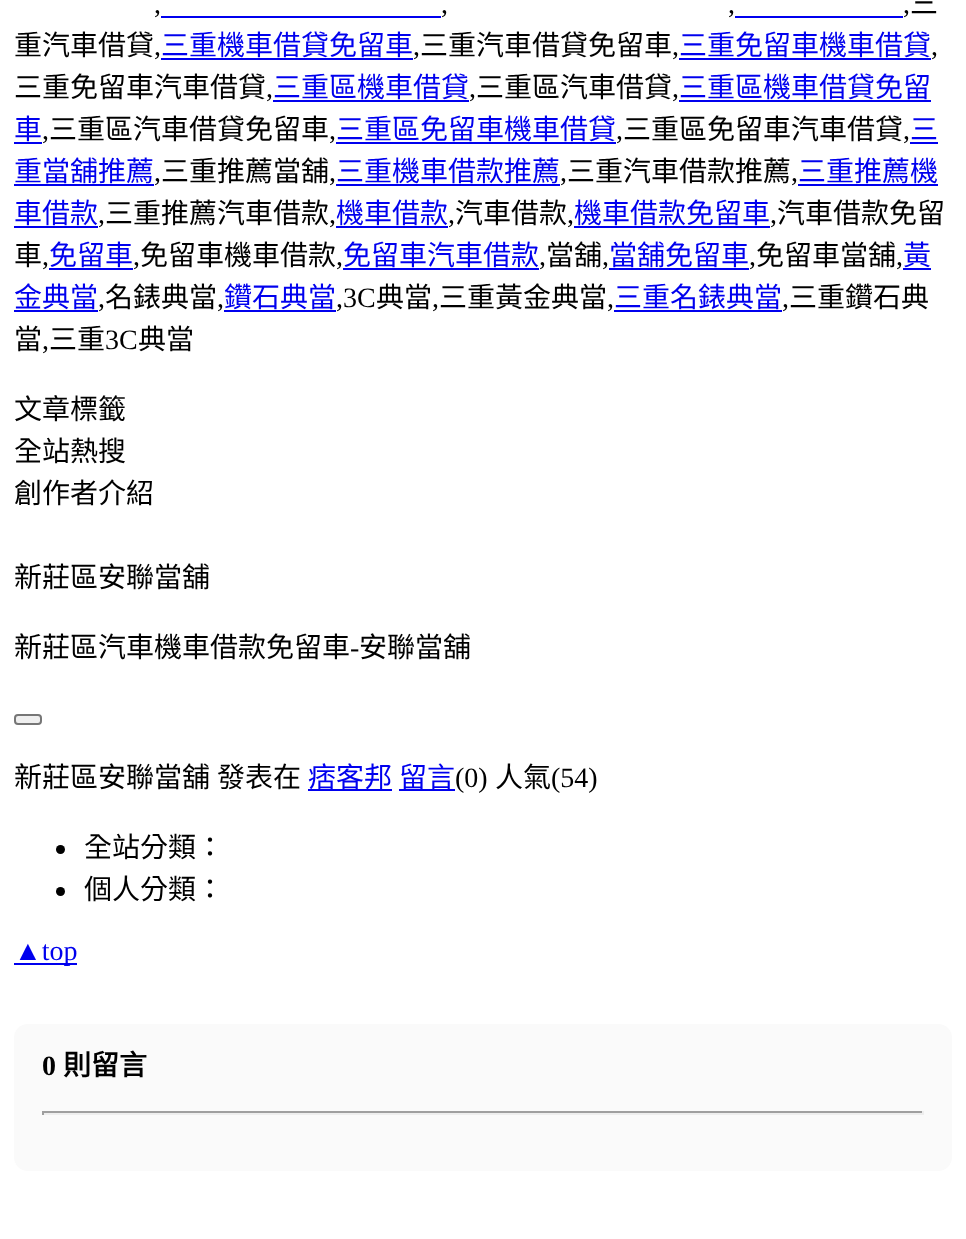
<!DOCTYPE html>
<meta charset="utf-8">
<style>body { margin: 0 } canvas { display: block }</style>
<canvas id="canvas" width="966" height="1239"></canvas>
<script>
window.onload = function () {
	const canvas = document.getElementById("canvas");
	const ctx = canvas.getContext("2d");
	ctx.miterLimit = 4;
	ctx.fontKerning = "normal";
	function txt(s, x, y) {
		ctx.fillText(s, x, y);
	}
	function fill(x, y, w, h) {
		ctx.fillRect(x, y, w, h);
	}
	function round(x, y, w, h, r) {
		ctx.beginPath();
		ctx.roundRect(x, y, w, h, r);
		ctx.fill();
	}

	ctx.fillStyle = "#FFFFFF";
	fill(0, 0, 966, 1239);
	ctx.fillStyle = "#0000EE";
	fill(161, 16, 280, 2);
	fill(735, 16, 168, 2);
	fill(161, 58, 252, 2);
	fill(679, 58, 252, 2);
	fill(273, 100, 196, 2);
	fill(679, 100, 252, 2);
	fill(14, 142, 28, 2);
	fill(336, 142, 280, 2);
	fill(910, 142, 28, 2);
	fill(14, 184, 140, 2);
	fill(336, 184, 224, 2);
	fill(798, 184, 140, 2);
	fill(14, 226, 84, 2);
	fill(336, 226, 112, 2);
	fill(574, 226, 196, 2);
	fill(49, 268, 84, 2);
	fill(343, 268, 196, 2);
	fill(609, 268, 140, 2);
	fill(903, 268, 28, 2);
	fill(14, 310, 84, 2);
	fill(224, 310, 112, 2);
	fill(614, 310, 168, 2);
	ctx.fillStyle = "#EFEFEF";
	ctx.beginPath();
	ctx.roundRect(15, 715, 26, 9, 3);
	ctx.fill();
	ctx.strokeStyle = "#767676";
	ctx.lineWidth = 2;
	ctx.stroke();
	ctx.fillStyle = "#0000EE";
	fill(308, 789, 84, 2);
	fill(399, 789, 56, 2);
	ctx.fillStyle = "#000000";
	ctx.beginPath();
	ctx.arc(60.5, 849.5, 4.5, 0, Math.PI * 2);
	ctx.fill();
	ctx.beginPath();
	ctx.arc(60.5, 891.5, 4.5, 0, Math.PI * 2);
	ctx.fill();
	ctx.fillStyle = "#0000EE";
	fill(14, 963, 63, 2);
	ctx.fillStyle = "#FAFAFA";
	round(14, 1024, 938, 147, 14);
	ctx.fillStyle = "#9F9F9F";
	fill(42, 1111, 882, 2);
	ctx.fillStyle = "#EEEEEE";
	fill(922, 1111, 2, 4);
	fill(42, 1113, 882, 2);
	ctx.fillStyle = "#9F9F9F";
	fill(42, 1111, 2, 4);
	ctx.font = "28px Liberation Serif";
	ctx.fillStyle = "#000000";
	txt(",", 154, 13);
	txt(",", 441, 13);
	txt(",", 728, 13);
	txt(",", 903, 13);
	ctx.font = "28px Noto Sans CJK TC";
	txt("三", 910, 13);
	txt("重汽車借貸", 14, 55);
	ctx.font = "28px Liberation Serif";
	txt(",", 154, 55);
	ctx.font = "28px Noto Sans CJK TC";
	ctx.fillStyle = "#0000EE";
	txt("三重機車借貸免留車", 161, 55);
	ctx.font = "28px Liberation Serif";
	ctx.fillStyle = "#000000";
	txt(",", 413, 55);
	ctx.font = "28px Noto Sans CJK TC";
	txt("三重汽車借貸免留車", 420, 55);
	ctx.font = "28px Liberation Serif";
	txt(",", 672, 55);
	ctx.font = "28px Noto Sans CJK TC";
	ctx.fillStyle = "#0000EE";
	txt("三重免留車機車借貸", 679, 55);
	ctx.font = "28px Liberation Serif";
	ctx.fillStyle = "#000000";
	txt(",", 931, 55);
	ctx.font = "28px Noto Sans CJK TC";
	txt("三重免留車汽車借貸", 14, 97);
	ctx.font = "28px Liberation Serif";
	txt(",", 266, 97);
	ctx.font = "28px Noto Sans CJK TC";
	ctx.fillStyle = "#0000EE";
	txt("三重區機車借貸", 273, 97);
	ctx.font = "28px Liberation Serif";
	ctx.fillStyle = "#000000";
	txt(",", 469, 97);
	ctx.font = "28px Noto Sans CJK TC";
	txt("三重區汽車借貸", 476, 97);
	ctx.font = "28px Liberation Serif";
	txt(",", 672, 97);
	ctx.font = "28px Noto Sans CJK TC";
	ctx.fillStyle = "#0000EE";
	txt("三重區機車借貸免留", 679, 97);
	txt("車", 14, 139);
	ctx.font = "28px Liberation Serif";
	ctx.fillStyle = "#000000";
	txt(",", 42, 139);
	ctx.font = "28px Noto Sans CJK TC";
	txt("三重區汽車借貸免留車", 49, 139);
	ctx.font = "28px Liberation Serif";
	txt(",", 329, 139);
	ctx.font = "28px Noto Sans CJK TC";
	ctx.fillStyle = "#0000EE";
	txt("三重區免留車機車借貸", 336, 139);
	ctx.font = "28px Liberation Serif";
	ctx.fillStyle = "#000000";
	txt(",", 616, 139);
	ctx.font = "28px Noto Sans CJK TC";
	txt("三重區免留車汽車借貸", 623, 139);
	ctx.font = "28px Liberation Serif";
	txt(",", 903, 139);
	ctx.font = "28px Noto Sans CJK TC";
	ctx.fillStyle = "#0000EE";
	txt("三", 910, 139);
	txt("重當舖推薦", 14, 181);
	ctx.font = "28px Liberation Serif";
	ctx.fillStyle = "#000000";
	txt(",", 154, 181);
	ctx.font = "28px Noto Sans CJK TC";
	txt("三重推薦當舖", 161, 181);
	ctx.font = "28px Liberation Serif";
	txt(",", 329, 181);
	ctx.font = "28px Noto Sans CJK TC";
	ctx.fillStyle = "#0000EE";
	txt("三重機車借款推薦", 336, 181);
	ctx.font = "28px Liberation Serif";
	ctx.fillStyle = "#000000";
	txt(",", 560, 181);
	ctx.font = "28px Noto Sans CJK TC";
	txt("三重汽車借款推薦", 567, 181);
	ctx.font = "28px Liberation Serif";
	txt(",", 791, 181);
	ctx.font = "28px Noto Sans CJK TC";
	ctx.fillStyle = "#0000EE";
	txt("三重推薦機", 798, 181);
	txt("車借款", 14, 223);
	ctx.font = "28px Liberation Serif";
	ctx.fillStyle = "#000000";
	txt(",", 98, 223);
	ctx.font = "28px Noto Sans CJK TC";
	txt("三重推薦汽車借款", 105, 223);
	ctx.font = "28px Liberation Serif";
	txt(",", 329, 223);
	ctx.font = "28px Noto Sans CJK TC";
	ctx.fillStyle = "#0000EE";
	txt("機車借款", 336, 223);
	ctx.font = "28px Liberation Serif";
	ctx.fillStyle = "#000000";
	txt(",", 448, 223);
	ctx.font = "28px Noto Sans CJK TC";
	txt("汽車借款", 455, 223);
	ctx.font = "28px Liberation Serif";
	txt(",", 567, 223);
	ctx.font = "28px Noto Sans CJK TC";
	ctx.fillStyle = "#0000EE";
	txt("機車借款免留車", 574, 223);
	ctx.font = "28px Liberation Serif";
	ctx.fillStyle = "#000000";
	txt(",", 770, 223);
	ctx.font = "28px Noto Sans CJK TC";
	txt("汽車借款免留", 777, 223);
	txt("車", 14, 265);
	ctx.font = "28px Liberation Serif";
	txt(",", 42, 265);
	ctx.font = "28px Noto Sans CJK TC";
	ctx.fillStyle = "#0000EE";
	txt("免留車", 49, 265);
	ctx.font = "28px Liberation Serif";
	ctx.fillStyle = "#000000";
	txt(",", 133, 265);
	ctx.font = "28px Noto Sans CJK TC";
	txt("免留車機車借款", 140, 265);
	ctx.font = "28px Liberation Serif";
	txt(",", 336, 265);
	ctx.font = "28px Noto Sans CJK TC";
	ctx.fillStyle = "#0000EE";
	txt("免留車汽車借款", 343, 265);
	ctx.font = "28px Liberation Serif";
	ctx.fillStyle = "#000000";
	txt(",", 539, 265);
	ctx.font = "28px Noto Sans CJK TC";
	txt("當舖", 546, 265);
	ctx.font = "28px Liberation Serif";
	txt(",", 602, 265);
	ctx.font = "28px Noto Sans CJK TC";
	ctx.fillStyle = "#0000EE";
	txt("當舖免留車", 609, 265);
	ctx.font = "28px Liberation Serif";
	ctx.fillStyle = "#000000";
	txt(",", 749, 265);
	ctx.font = "28px Noto Sans CJK TC";
	txt("免留車當舖", 756, 265);
	ctx.font = "28px Liberation Serif";
	txt(",", 896, 265);
	ctx.font = "28px Noto Sans CJK TC";
	ctx.fillStyle = "#0000EE";
	txt("黃", 903, 265);
	txt("金典當", 14, 307);
	ctx.font = "28px Liberation Serif";
	ctx.fillStyle = "#000000";
	txt(",", 98, 307);
	ctx.font = "28px Noto Sans CJK TC";
	txt("名錶典當", 105, 307);
	ctx.font = "28px Liberation Serif";
	txt(",", 217, 307);
	ctx.font = "28px Noto Sans CJK TC";
	ctx.fillStyle = "#0000EE";
	txt("鑽石典當", 224, 307);
	ctx.font = "28px Liberation Serif";
	ctx.fillStyle = "#000000";
	txt(",3C", 336, 307);
	ctx.font = "28px Noto Sans CJK TC";
	txt("典當", 376, 307);
	ctx.font = "28px Liberation Serif";
	txt(",", 432, 307);
	ctx.font = "28px Noto Sans CJK TC";
	txt("三重黃金典當", 439, 307);
	ctx.font = "28px Liberation Serif";
	txt(",", 607, 307);
	ctx.font = "28px Noto Sans CJK TC";
	ctx.fillStyle = "#0000EE";
	txt("三重名錶典當", 614, 307);
	ctx.font = "28px Liberation Serif";
	ctx.fillStyle = "#000000";
	txt(",", 782, 307);
	ctx.font = "28px Noto Sans CJK TC";
	txt("三重鑽石典", 789, 307);
	txt("當", 14, 349);
	ctx.font = "28px Liberation Serif";
	txt(",", 42, 349);
	ctx.font = "28px Noto Sans CJK TC";
	txt("三重", 49, 349);
	ctx.font = "28px Liberation Serif";
	txt("3C", 105, 349);
	ctx.font = "28px Noto Sans CJK TC";
	txt("典當", 138, 349);
	txt("文章標籤", 14, 419);
	txt("全站熱搜", 14, 461);
	txt("創作者介紹", 14, 503);
	txt("新莊區安聯當舖", 14, 587);
	txt("新莊區汽車機車借款免留車", 14, 657);
	ctx.font = "28px Liberation Serif";
	txt("-", 350, 657);
	ctx.font = "28px Noto Sans CJK TC";
	txt("安聯當舖", 359, 657);
	txt("新莊區安聯當舖", 14, 787);
	txt("發表在", 217, 787);
	ctx.fillStyle = "#0000EE";
	txt("痞客邦", 308, 787);
	txt("留言", 399, 787);
	ctx.font = "28px Liberation Serif";
	ctx.fillStyle = "#000000";
	txt("(0)", 455, 787);
	ctx.font = "28px Noto Sans CJK TC";
	txt("人氣", 495, 787);
	ctx.font = "28px Liberation Serif";
	txt("(54)", 551, 787);
	ctx.font = "28px Noto Sans CJK TC";
	txt("全站分類：", 84, 857);
	txt("個人分類：", 84, 899);
	ctx.font = "28px Liberation Serif";
	ctx.fillStyle = "#0000EE";
	txt("▲top", 14, 960);
	ctx.font = "bold 28px Liberation Serif";
	ctx.fillStyle = "#000000";
	txt("0", 42, 1075);
	ctx.font = "bold 28px Noto Sans CJK TC";
	txt("則留言", 63, 1075);
};
</script>
